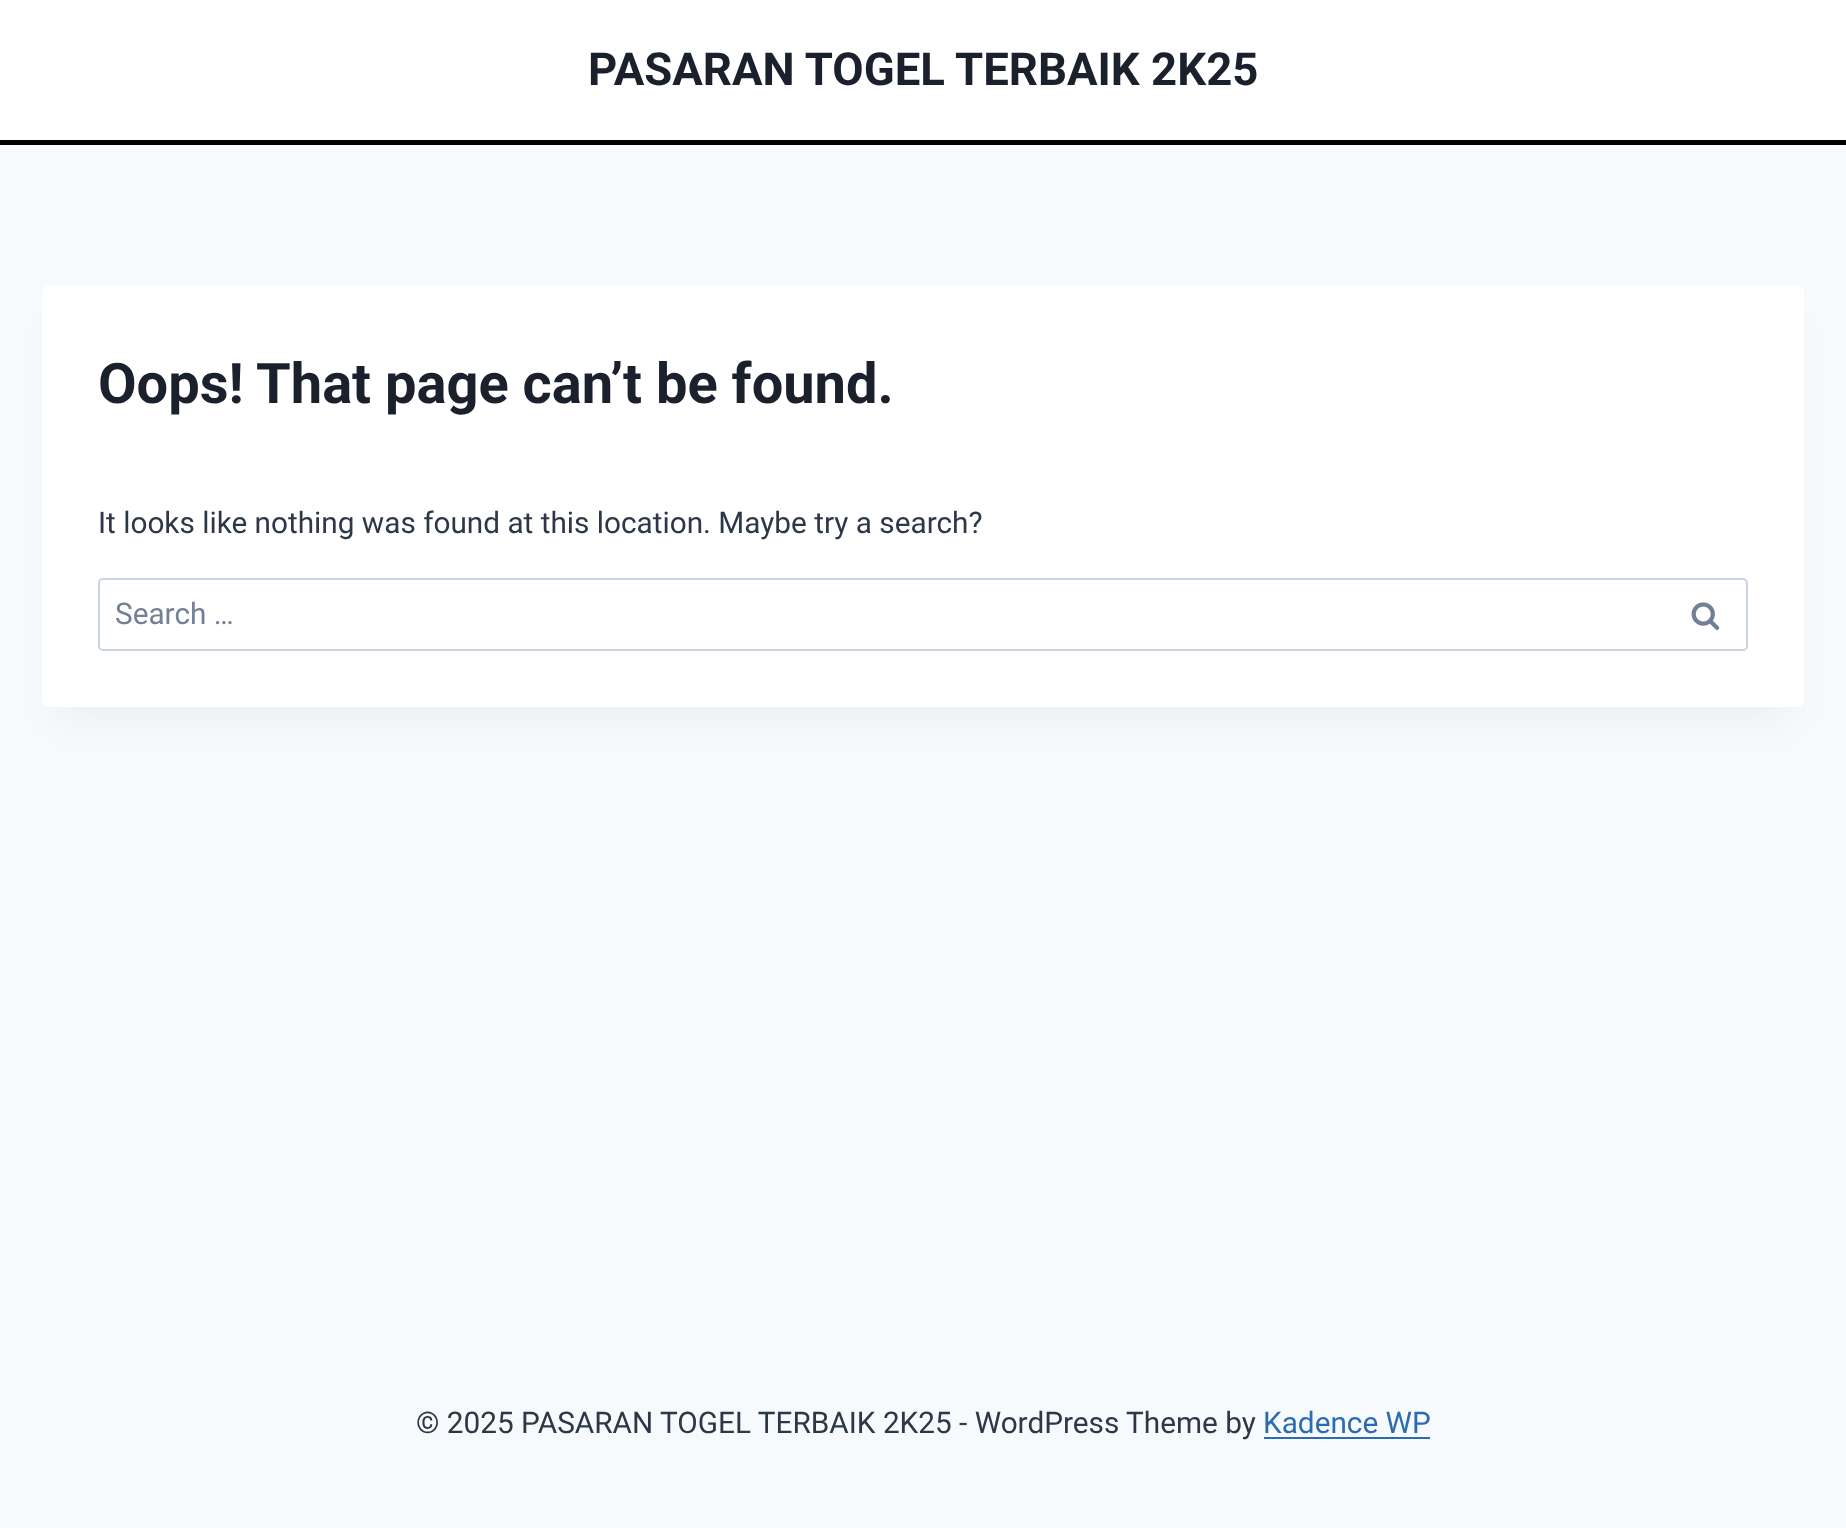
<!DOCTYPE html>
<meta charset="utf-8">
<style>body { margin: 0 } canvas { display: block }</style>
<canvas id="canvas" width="1846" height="1528"></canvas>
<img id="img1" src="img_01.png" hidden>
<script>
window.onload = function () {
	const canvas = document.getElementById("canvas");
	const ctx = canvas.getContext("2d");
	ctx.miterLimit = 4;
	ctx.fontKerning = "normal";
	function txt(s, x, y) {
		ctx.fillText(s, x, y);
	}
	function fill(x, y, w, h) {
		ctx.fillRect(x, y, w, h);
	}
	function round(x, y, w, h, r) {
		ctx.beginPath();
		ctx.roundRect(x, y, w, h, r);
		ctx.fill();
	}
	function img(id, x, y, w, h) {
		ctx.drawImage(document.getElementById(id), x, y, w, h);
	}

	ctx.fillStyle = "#F7FAFC";
	fill(0, 0, 1846, 1528);
	ctx.fillStyle = "#FFFFFF";
	fill(0, 0, 1846, 140);
	ctx.fillStyle = "#000000";
	fill(0, 140, 1846, 5);
	ctx.fillStyle = "rgba(0, 0, 0, 0.05)";
	ctx.filter = "blur(22px)";
	ctx.beginPath();
	ctx.rect(60, 329, 1727, 387);
	ctx.fill();
	ctx.filter = "none";
	ctx.fillStyle = "#FFFFFF";
	round(42, 285, 1762, 422, 7);
	ctx.beginPath();
	ctx.roundRect(99, 579, 1648, 71, 4);
	ctx.strokeStyle = "#CBD5E0";
	ctx.lineWidth = 2;
	ctx.stroke();
	img("img1", 1691, 602, 29, 28);
	ctx.fillStyle = "#2B6CB0";
	fill(1264, 1437, 166, 2);
	ctx.font = "bold 45.5px Roboto";
	ctx.fillStyle = "#1A202C";
	txt("PASARAN TOGEL TERBAIK 2K25", 588, 85);
	ctx.font = "bold 56px Roboto";
	txt("Oops! That page can’t be found.", 98, 403);
	ctx.font = "29.75px Roboto";
	ctx.fillStyle = "#2D3748";
	txt("It looks like nothing was found at this location. Maybe try a search?", 98, 533);
	ctx.fillStyle = "#718096";
	txt("Search …", 115, 624);
	ctx.fillStyle = "#2D3748";
	txt("© 2025 PASARAN TOGEL TERBAIK 2K25 - WordPress Theme by", 416, 1433);
	ctx.fillStyle = "#2B6CB0";
	txt("Kadence WP", 1263, 1433);
};
</script>
